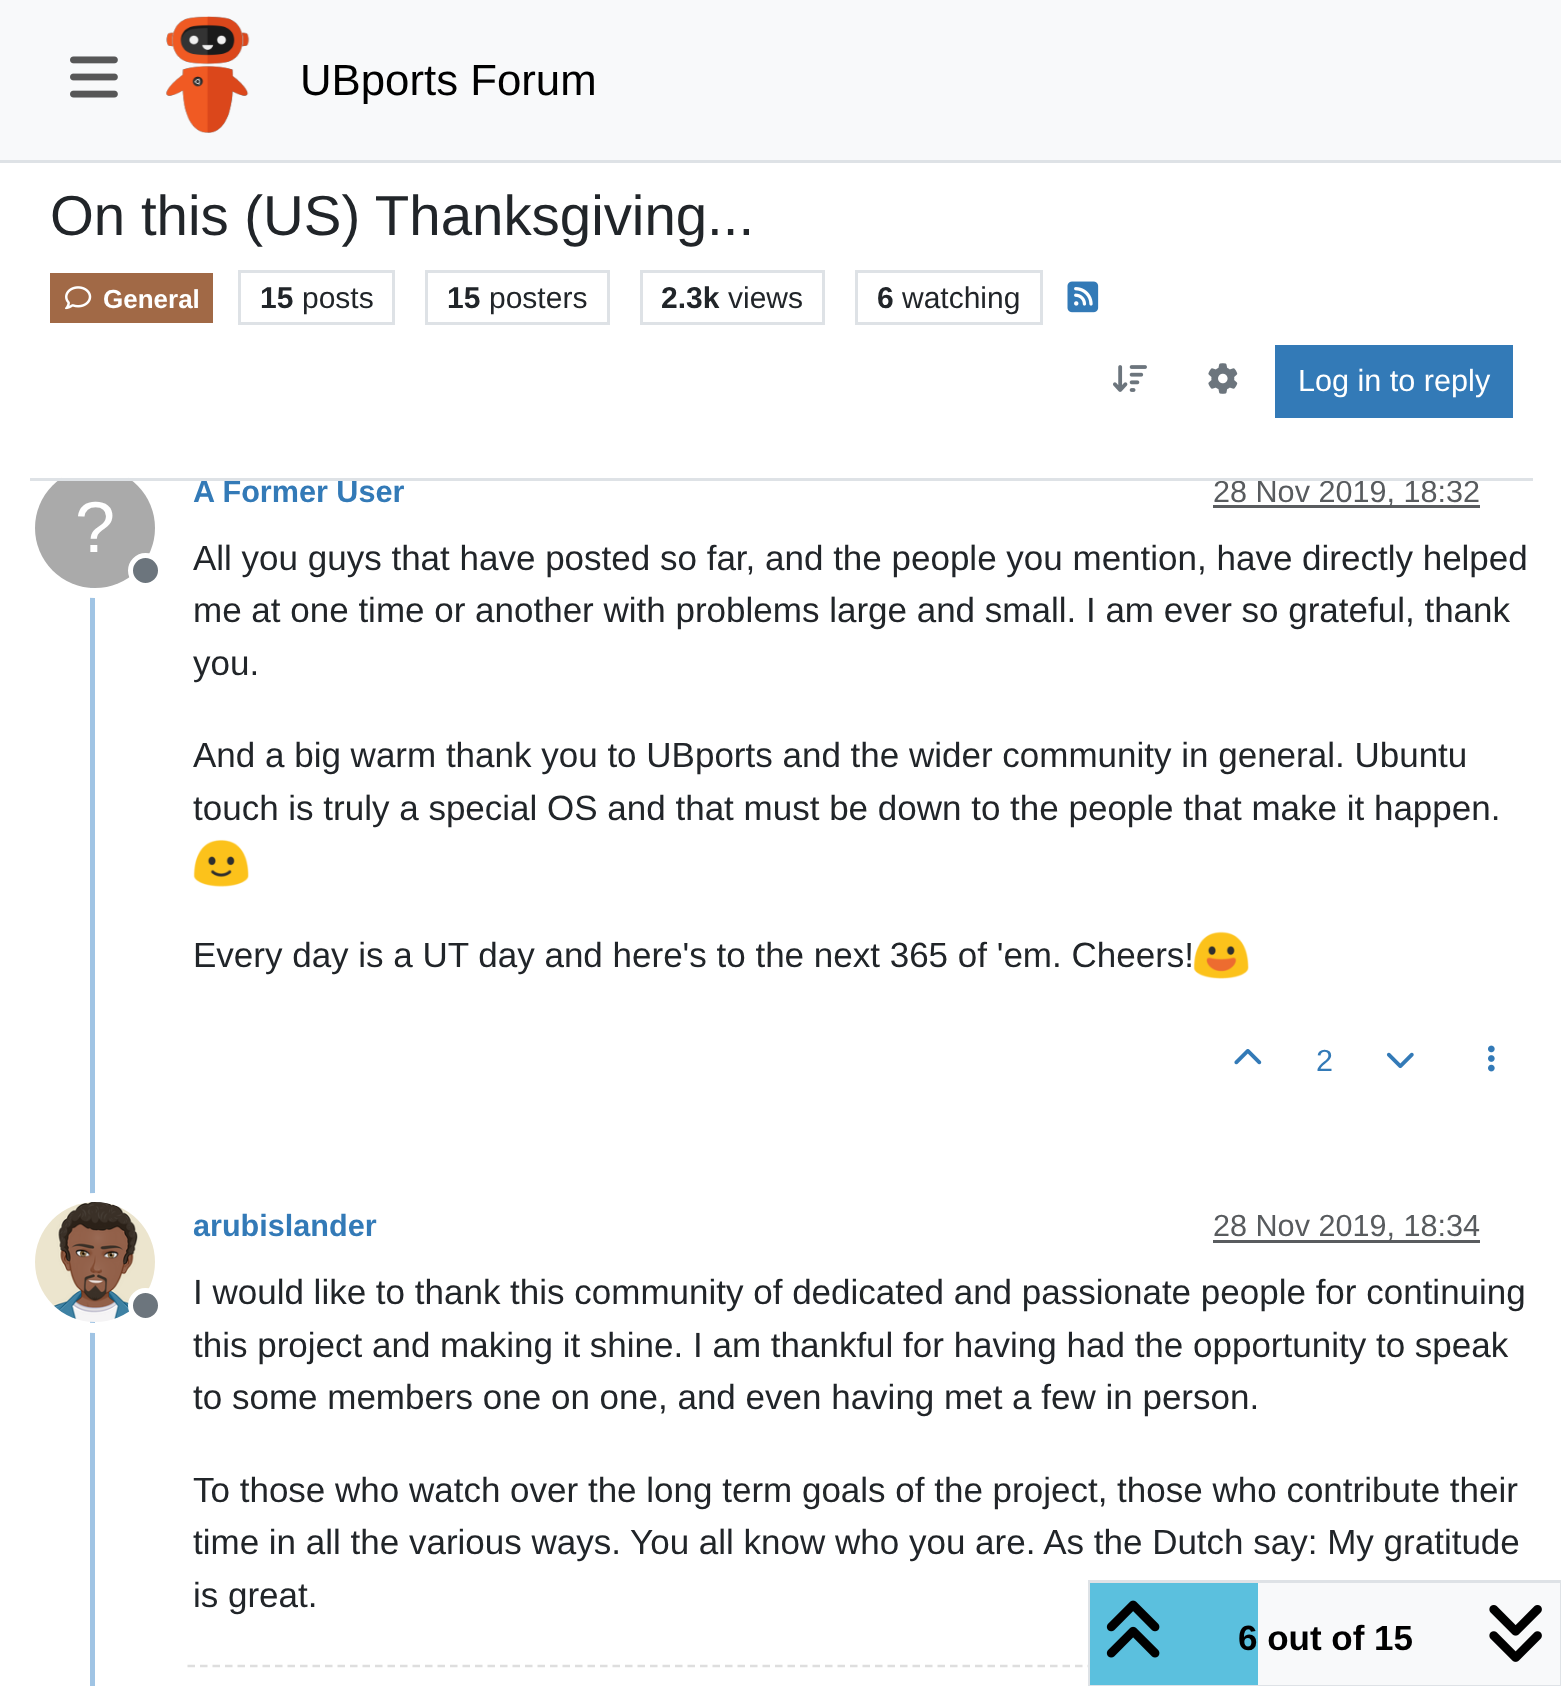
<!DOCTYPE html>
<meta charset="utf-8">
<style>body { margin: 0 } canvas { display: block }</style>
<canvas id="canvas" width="1561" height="1686"></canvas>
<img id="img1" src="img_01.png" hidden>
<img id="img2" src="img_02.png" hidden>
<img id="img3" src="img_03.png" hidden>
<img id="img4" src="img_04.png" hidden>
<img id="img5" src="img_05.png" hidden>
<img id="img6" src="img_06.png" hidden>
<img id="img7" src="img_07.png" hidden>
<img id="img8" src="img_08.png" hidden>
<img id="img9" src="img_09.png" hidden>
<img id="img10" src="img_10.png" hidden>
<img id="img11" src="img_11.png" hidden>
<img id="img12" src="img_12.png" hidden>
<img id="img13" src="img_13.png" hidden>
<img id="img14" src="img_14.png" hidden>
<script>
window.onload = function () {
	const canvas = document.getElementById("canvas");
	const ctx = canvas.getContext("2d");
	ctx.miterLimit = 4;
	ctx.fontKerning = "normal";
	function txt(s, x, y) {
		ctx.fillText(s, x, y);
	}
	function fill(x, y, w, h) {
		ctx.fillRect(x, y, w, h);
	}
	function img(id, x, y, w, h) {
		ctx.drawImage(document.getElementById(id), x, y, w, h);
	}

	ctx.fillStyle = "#FFFFFF";
	fill(0, 0, 1561, 1686);
	ctx.fillStyle = "#F8F9FA";
	fill(0, 0, 1561, 160);
	ctx.fillStyle = "#DEE2E6";
	fill(0, 160, 1561, 3);
	img("img1", 70, 56, 48, 42);
	img("img2", 166, 16, 84, 117);
	ctx.fillStyle = "#A0C4E4";
	fill(90, 587, 5, 1099);
	ctx.beginPath();
	ctx.arc(95, 528, 65, 0, Math.PI * 2);
	ctx.strokeStyle = "#FFFFFF";
	ctx.lineWidth = 10;
	ctx.stroke();
	ctx.fillStyle = "#AAAAAA";
	ctx.beginPath();
	ctx.arc(95, 528, 60, 0, Math.PI * 2);
	ctx.fill();
	ctx.fillStyle = "#FFFFFF";
	fill(62, 468, 66, 10);
	ctx.fillStyle = "#A16946";
	fill(50, 273, 163, 50);
	img("img3", 65, 286, 27, 24);
	ctx.strokeStyle = "#DEE2E6";
	ctx.lineWidth = 3;
	ctx.strokeRect(239.5, 271.5, 154, 52);
	ctx.strokeRect(426.5, 271.5, 182, 52);
	ctx.strokeRect(641.5, 271.5, 182, 52);
	ctx.strokeRect(856.5, 271.5, 185, 52);
	img("img4", 1067, 281, 32, 32);
	img("img5", 1113, 365, 34, 27);
	img("img6", 1208, 363, 30, 31);
	ctx.fillStyle = "#337AB7";
	fill(1275, 345, 238, 73);
	ctx.fillStyle = "#595C5F";
	fill(1213, 505, 267, 3);
	ctx.fillStyle = "#6C757D";
	ctx.beginPath();
	ctx.arc(145.5, 570.5, 15, 0, Math.PI * 2);
	ctx.fill();
	ctx.strokeStyle = "#FFFFFF";
	ctx.lineWidth = 5;
	ctx.stroke();
	img("img7", 193, 839, 56, 48);
	img("img8", 1193, 931, 56, 48);
	img("img9", 1234, 1049, 28, 16);
	img("img10", 1386, 1052, 28, 17);
	img("img11", 1488, 1045, 7, 27);
	ctx.beginPath();
	ctx.arc(95, 1263, 65, 0, Math.PI * 2);
	ctx.lineWidth = 10;
	ctx.stroke();
	img("img12", 35, 1202, 120, 120);
	ctx.beginPath();
	ctx.arc(145.5, 1305.5, 15, 0, Math.PI * 2);
	ctx.fill();
	ctx.lineWidth = 5;
	ctx.stroke();
	ctx.fillStyle = "#595C5F";
	fill(1213, 1240, 267, 3);
	ctx.beginPath();
	ctx.moveTo(187.5, 1666);
	ctx.lineTo(1532.5, 1666);
	ctx.strokeStyle = "#DEDEDE";
	ctx.lineWidth = 2.5;
	ctx.setLineDash([7.5, 5]);
	ctx.stroke();
	ctx.fillStyle = "#F8F9FA";
	fill(1258, 1583, 302, 102);
	ctx.strokeStyle = "#DEE2E6";
	ctx.lineWidth = 3;
	ctx.setLineDash([]);
	ctx.strokeRect(1089.5, 1581.5, 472, 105);
	ctx.fillStyle = "#5BC0DE";
	fill(1090, 1583, 168, 102);
	img("img13", 1106, 1600, 54, 58);
	img("img14", 1489, 1605, 53, 57);
	ctx.font = "43.75px Liberation Sans";
	ctx.fillStyle = "#000000";
	txt("UBports Forum", 300, 95);
	ctx.font = "56.4px Liberation Sans";
	ctx.fillStyle = "#212529";
	txt("On this (US) Thanksgiving...", 50, 235);
	ctx.font = "bold 26px Liberation Sans";
	ctx.fillStyle = "#FFFFFF";
	txt("General", 103, 308);
	ctx.font = "bold 30px Liberation Sans";
	ctx.fillStyle = "#212529";
	txt("15", 260, 308);
	ctx.font = "30px Liberation Sans";
	txt("posts", 302, 308);
	ctx.font = "bold 30px Liberation Sans";
	txt("15", 447, 308);
	ctx.font = "30px Liberation Sans";
	txt("posters", 489, 308);
	ctx.font = "bold 30px Liberation Sans";
	txt("2.3k", 661, 308);
	ctx.font = "30px Liberation Sans";
	txt("views", 728, 308);
	ctx.font = "bold 30px Liberation Sans";
	txt("6", 877, 308);
	ctx.font = "30px Liberation Sans";
	txt("watching", 902, 308);
	ctx.font = "30.6px Liberation Sans";
	ctx.fillStyle = "#FFFFFF";
	txt("Log in to reply", 1298, 391);
	ctx.font = "bold 30.6px Liberation Sans";
	ctx.fillStyle = "#337AB7";
	txt("A Former User", 193, 502);
	ctx.font = "30.6px Liberation Sans";
	ctx.fillStyle = "#585B5E";
	txt("28 Nov 2019, 18:32", 1213, 502);
	ctx.fillStyle = "#DEE2E6";
	fill(30, 478, 1503, 3);
	ctx.font = "72px Liberation Sans";
	ctx.fillStyle = "#FFFFFF";
	txt("?", 75, 552);
	ctx.font = "35px Liberation Sans";
	ctx.fillStyle = "#212529";
	txt("All you guys that have posted so far, and the people you mention, have directly helped", 193, 570);
	txt("me at one time or another with problems large and small. I am ever so grateful, thank", 193, 622);
	txt("you.", 193, 675);
	txt("And a big warm thank you to UBports and the wider community in general. Ubuntu", 193, 767);
	txt("touch is truly a special OS and that must be down to the people that make it happen.", 193, 820);
	txt("Every day is a UT day and here's to the next 365 of 'em. Cheers!", 193, 967);
	ctx.font = "30.6px Liberation Sans";
	ctx.fillStyle = "#337AB7";
	txt("2", 1316, 1071);
	ctx.font = "bold 30.6px Liberation Sans";
	txt("arubislander", 193, 1236);
	ctx.font = "30.6px Liberation Sans";
	ctx.fillStyle = "#585B5E";
	txt("28 Nov 2019, 18:34", 1213, 1236);
	ctx.font = "35px Liberation Sans";
	ctx.fillStyle = "#212529";
	txt("I would like to thank this community of dedicated and passionate people for continuing", 193, 1304);
	txt("this project and making it shine. I am thankful for having had the opportunity to speak", 193, 1357);
	txt("to some members one on one, and even having met a few in person.", 193, 1409);
	txt("To those who watch over the long term goals of the project, those who contribute their", 193, 1502);
	txt("time in all the various ways. You all know who you are. As the Dutch say: My gratitude", 193, 1554);
	txt("is great.", 193, 1607);
	ctx.font = "bold 35px Liberation Sans";
	ctx.fillStyle = "#000000";
	txt("6 out of 15", 1238, 1650);
};
</script>
